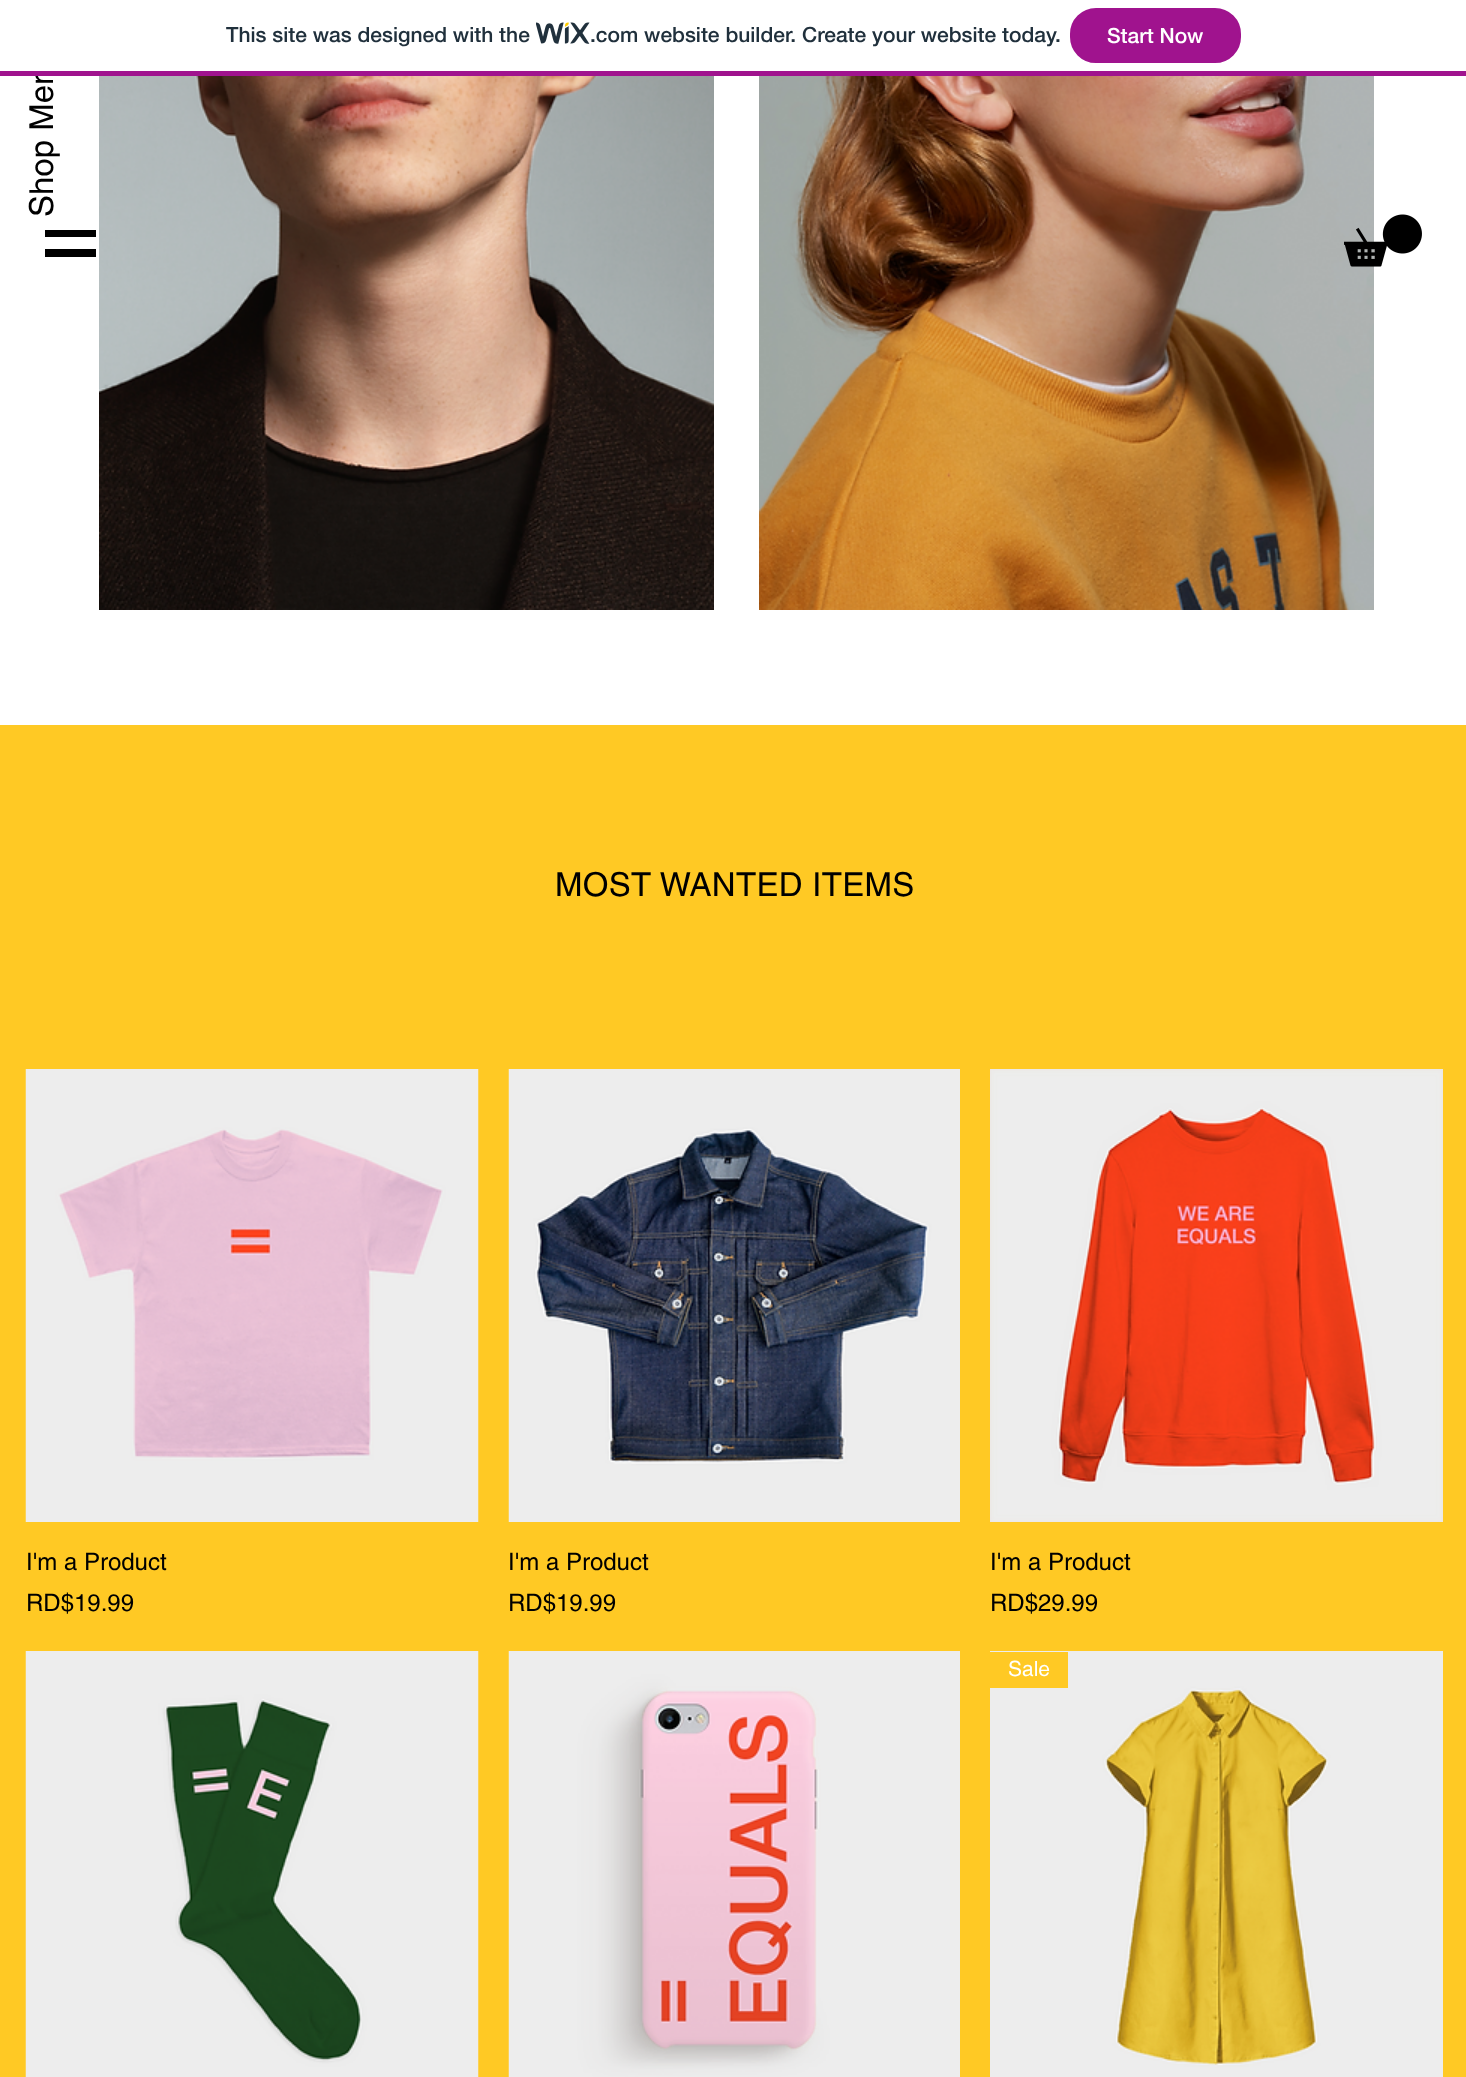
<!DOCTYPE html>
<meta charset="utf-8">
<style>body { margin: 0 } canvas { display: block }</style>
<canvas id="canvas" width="1466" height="2077"></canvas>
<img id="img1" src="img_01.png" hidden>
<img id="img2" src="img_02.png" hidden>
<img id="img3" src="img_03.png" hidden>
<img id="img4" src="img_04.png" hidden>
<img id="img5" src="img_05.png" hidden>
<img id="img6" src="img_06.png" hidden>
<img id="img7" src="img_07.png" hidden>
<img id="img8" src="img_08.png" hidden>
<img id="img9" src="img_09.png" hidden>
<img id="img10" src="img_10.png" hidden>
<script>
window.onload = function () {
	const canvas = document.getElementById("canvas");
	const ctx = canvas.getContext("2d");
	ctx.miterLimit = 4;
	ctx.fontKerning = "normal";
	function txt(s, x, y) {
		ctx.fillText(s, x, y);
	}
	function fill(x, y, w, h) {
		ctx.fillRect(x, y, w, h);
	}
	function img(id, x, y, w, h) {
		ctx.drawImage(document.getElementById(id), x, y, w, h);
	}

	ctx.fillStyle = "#FFFFFF";
	fill(0, 0, 1466, 2077);
	img("img1", 536, 22, 54, 22);
	ctx.fillStyle = "#A0138E";
	ctx.beginPath();
	ctx.roundRect(1071, 9, 169, 53, 25);
	ctx.fill();
	ctx.strokeStyle = "#A0138E";
	ctx.lineWidth = 2;
	ctx.stroke();
	img("img2", 99, 76, 615, 534);
	img("img3", 759, 76, 615, 534);
	ctx.fillStyle = "#FFC924";
	fill(0, 725, 1466, 1352);
	img("img4", 25, 1069, 454, 453);
	img("img5", 508, 1069, 452, 453);
	img("img6", 990, 1069, 453, 453);
	img("img7", 25, 1651, 454, 426);
	img("img8", 508, 1651, 452, 426);
	img("img9", 990, 1651, 453, 426);
	fill(990, 1652, 78, 36);
	img("img10", 1344, 214, 78, 53);
	ctx.fillStyle = "#000000";
	fill(45, 230, 51, 7);
	fill(45, 249, 51, 8);
	ctx.font = "500 21px 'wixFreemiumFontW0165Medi'";
	ctx.fillStyle = "#20303C";
	txt("This site was designed with the", 226, 42);
	txt(".com website builder. Create your website today.", 590, 42);
	ctx.fillStyle = "#FFFFFF";
	txt("Start Now", 1107, 43);
	ctx.font = "33px helvetica";
	ctx.fillStyle = "#000000";
	ctx.save();
	ctx.translate(53, 217);
	ctx.rotate(-90 * Math.PI / 180);
	ctx.fillText("Shop Men", 0, 0);
	ctx.restore();
	ctx.fillStyle = "#A0138E";
	fill(0, 71, 1466, 5);
	ctx.fillStyle = "#FFFFFF";
	fill(36, 68, 18, 3);
	ctx.letterSpacing = "0.3px";
	ctx.fillStyle = "#000000";
	txt("MOST WANTED ITEMS", 555, 896);
	ctx.letterSpacing = "0px";
	ctx.font = "24px helvetica";
	txt("I'm a Product", 26, 1570);
	txt("RD$19.99", 26, 1611);
	txt("I'm a Product", 508, 1570);
	txt("RD$19.99", 508, 1611);
	txt("I'm a Product", 990, 1570);
	txt("RD$29.99", 990, 1611);
	ctx.font = "21px helvetica";
	ctx.fillStyle = "#FFFFFF";
	txt("Sale", 1008, 1676);
};
</script>
